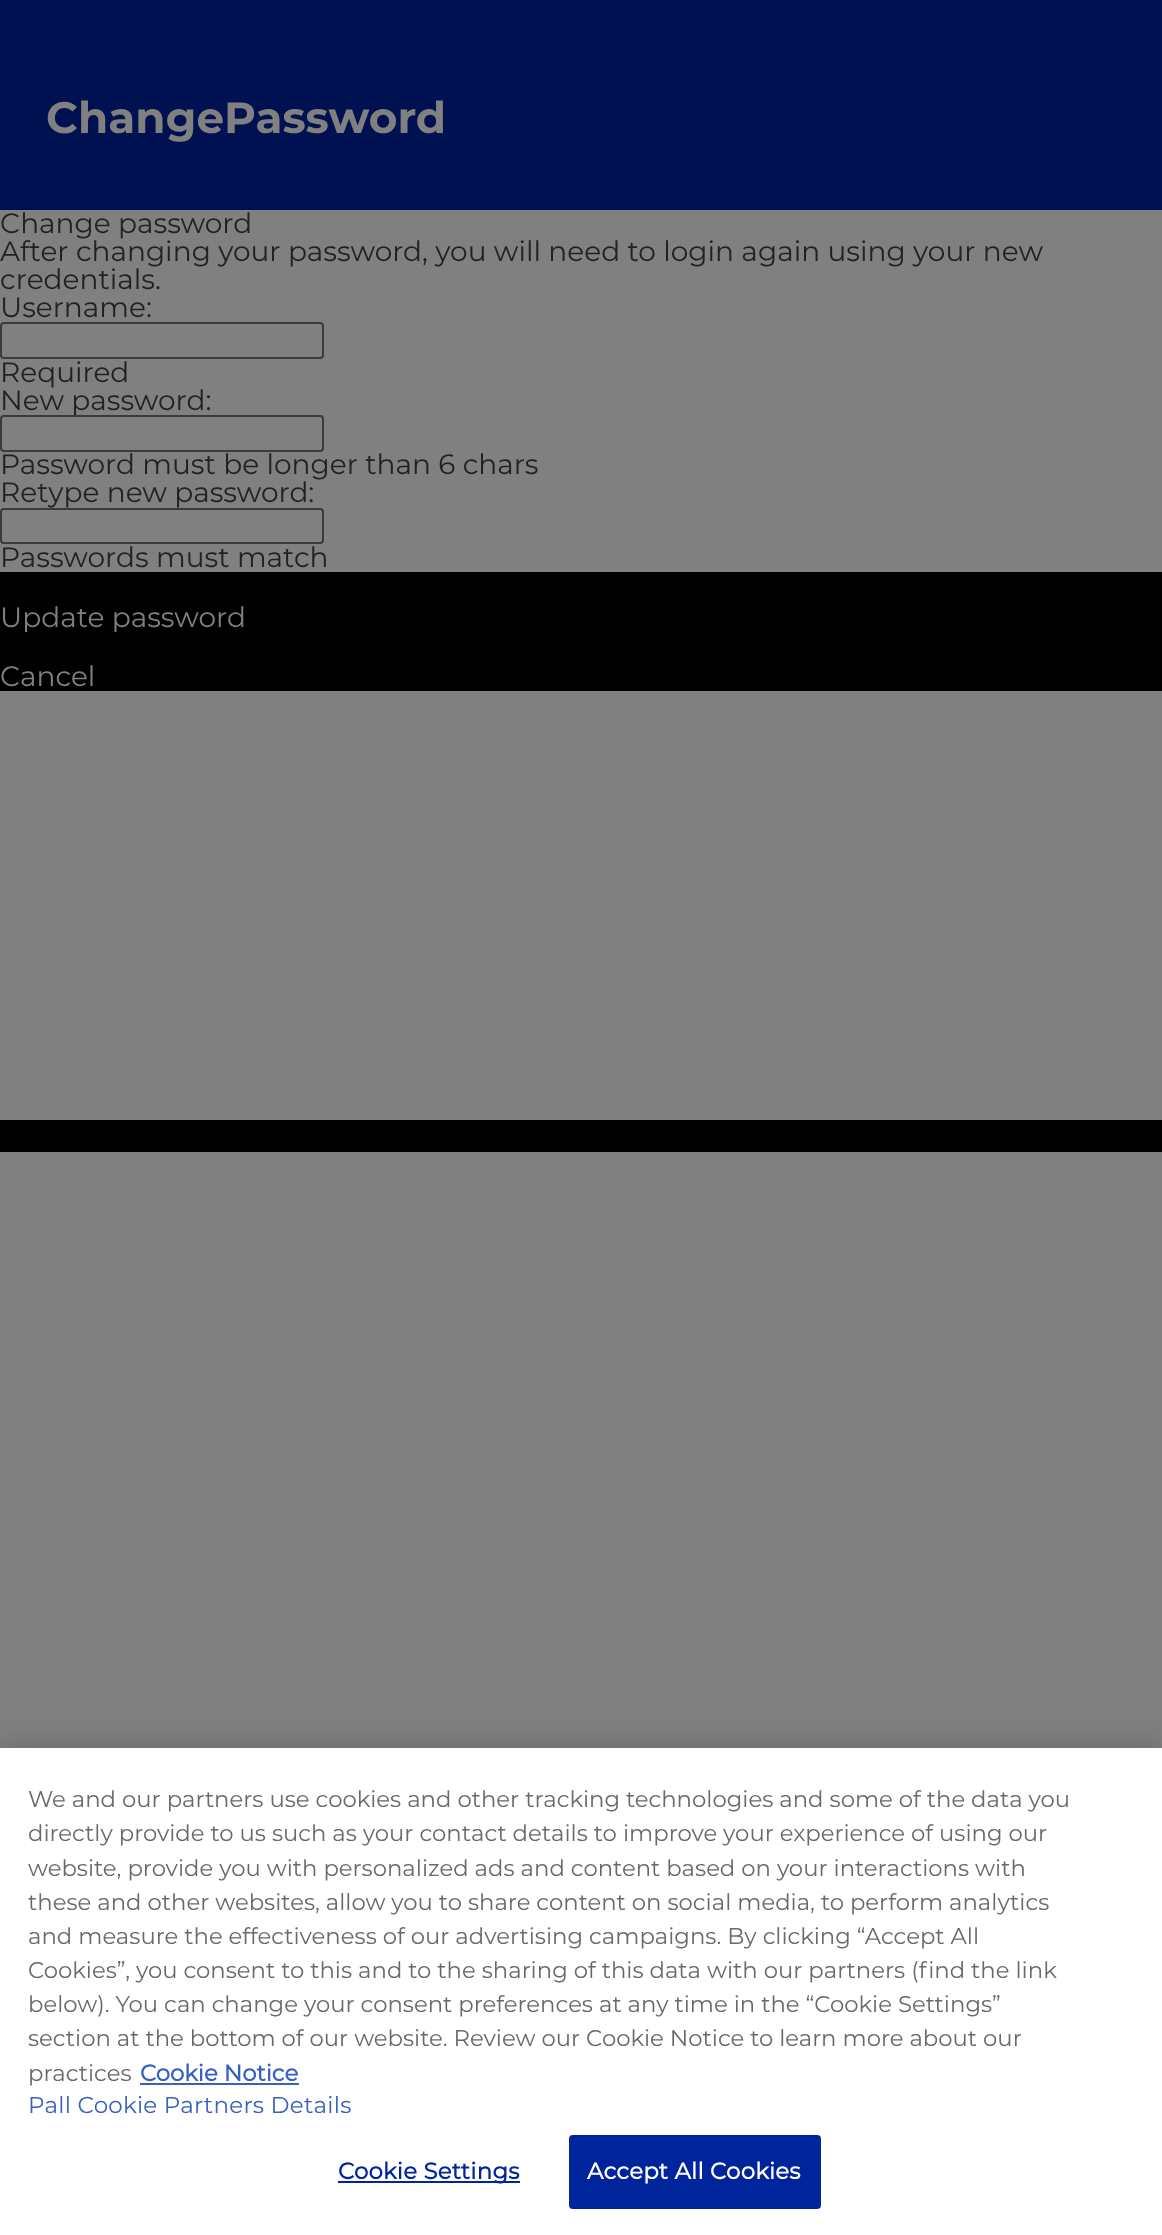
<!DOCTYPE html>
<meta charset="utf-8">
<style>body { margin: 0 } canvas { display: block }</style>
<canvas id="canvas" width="1162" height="2235"></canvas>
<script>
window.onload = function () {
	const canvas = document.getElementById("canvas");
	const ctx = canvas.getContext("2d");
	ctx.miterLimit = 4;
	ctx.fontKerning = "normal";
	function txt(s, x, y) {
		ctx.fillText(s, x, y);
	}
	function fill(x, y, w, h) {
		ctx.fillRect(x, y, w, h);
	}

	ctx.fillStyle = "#808080";
	fill(0, 0, 1162, 2235);
	ctx.fillStyle = "#001151";
	fill(0, 0, 1162, 210);
	ctx.beginPath();
	ctx.roundRect(1, 323, 322, 35, 3);
	ctx.strokeStyle = "#3B3B3B";
	ctx.lineWidth = 2;
	ctx.stroke();
	ctx.beginPath();
	ctx.roundRect(1, 509, 322, 34, 3);
	ctx.stroke();
	ctx.fillStyle = "#000000";
	fill(0, 572, 1162, 60);
	fill(0, 1120, 1162, 32);
	ctx.fillStyle = "rgba(0, 0, 0, 0.2)";
	ctx.filter = "blur(16px)";
	ctx.beginPath();
	ctx.rect(0, 1748, 1162, 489);
	ctx.fill();
	ctx.filter = "none";
	ctx.fillStyle = "#FFFFFF";
	fill(0, 1748, 1162, 487);
	ctx.fillStyle = "#3860BE";
	fill(140, 2083, 159, 2);
	ctx.fillStyle = "#00249C";
	fill(338, 2181, 182, 2);
	ctx.beginPath();
	ctx.roundRect(570, 2136, 250, 72, 3);
	ctx.fill();
	ctx.strokeStyle = "#00249C";
	ctx.stroke();
	ctx.font = "bold 43.75px Montserrat";
	ctx.fillStyle = "#808080";
	txt("ChangePassword", 46, 133);
	ctx.font = "28px Montserrat";
	ctx.fillStyle = "#222222";
	txt("Change password", 0, 233);
	txt("After changing your password, you will need to login again using your new", 0, 261);
	txt("credentials.", 0, 289);
	txt("Username:", 0, 317);
	txt("Required", 0, 382);
	txt("New password:", 0, 410);
	ctx.fillStyle = "#808080";
	ctx.beginPath();
	ctx.roundRect(1, 416, 322, 35, 3);
	ctx.fill();
	ctx.strokeStyle = "#3B3B3B";
	ctx.stroke();
	ctx.fillStyle = "#222222";
	txt("Password must be longer than 6 chars", 0, 474);
	txt("Retype new password:", 0, 502);
	txt("Passwords must match", 0, 567);
	ctx.fillStyle = "#808080";
	txt("Update password", 0, 627);
	ctx.fillStyle = "#000000";
	fill(0, 632, 1162, 59);
	ctx.fillStyle = "#808080";
	txt("Cancel", 0, 686);
	ctx.font = "22.75px Montserrat";
	ctx.fillStyle = "#696969";
	txt("We and our partners use cookies and other tracking technologies and some of the data you", 28, 1807);
	txt("directly provide to us such as your contact details to", 28, 1841);
	txt("improve your experience of using our", 623, 1841);
	txt("website, provide you with personalized ads and content based on your interactions with", 28, 1876);
	txt("these and other websites, allow you to share content on social media, to perform analytics", 28, 1910);
	txt("and measure the effectiveness of our advertising campaigns. By clicking “Accept All", 28, 1944);
	txt("Cookies”, you consent to this and to the sharing of this data with our partners (find the link", 28, 1978);
	txt("below). You can change your consent preferences at any time in the “Cookie Settings”", 28, 2012);
	txt("section at the bottom of our website. Review our Cookie Notice to learn more about our", 28, 2046);
	txt("practices", 28, 2081);
	ctx.font = "bold 22.75px 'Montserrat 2'";
	ctx.fillStyle = "#3860BE";
	txt("Cookie Notice", 140, 2081);
	ctx.letterSpacing = "0.25px";
	ctx.font = "23px Montserrat";
	txt("Pall Cookie Partners Details", 28, 2113);
	ctx.font = "bold 22.75px 'Montserrat 2'";
	ctx.fillStyle = "#00249C";
	txt("Cookie Settings", 338, 2179);
	ctx.fillStyle = "#FFFFFF";
	txt("Accept All Cookies", 587, 2179);
};
</script>
